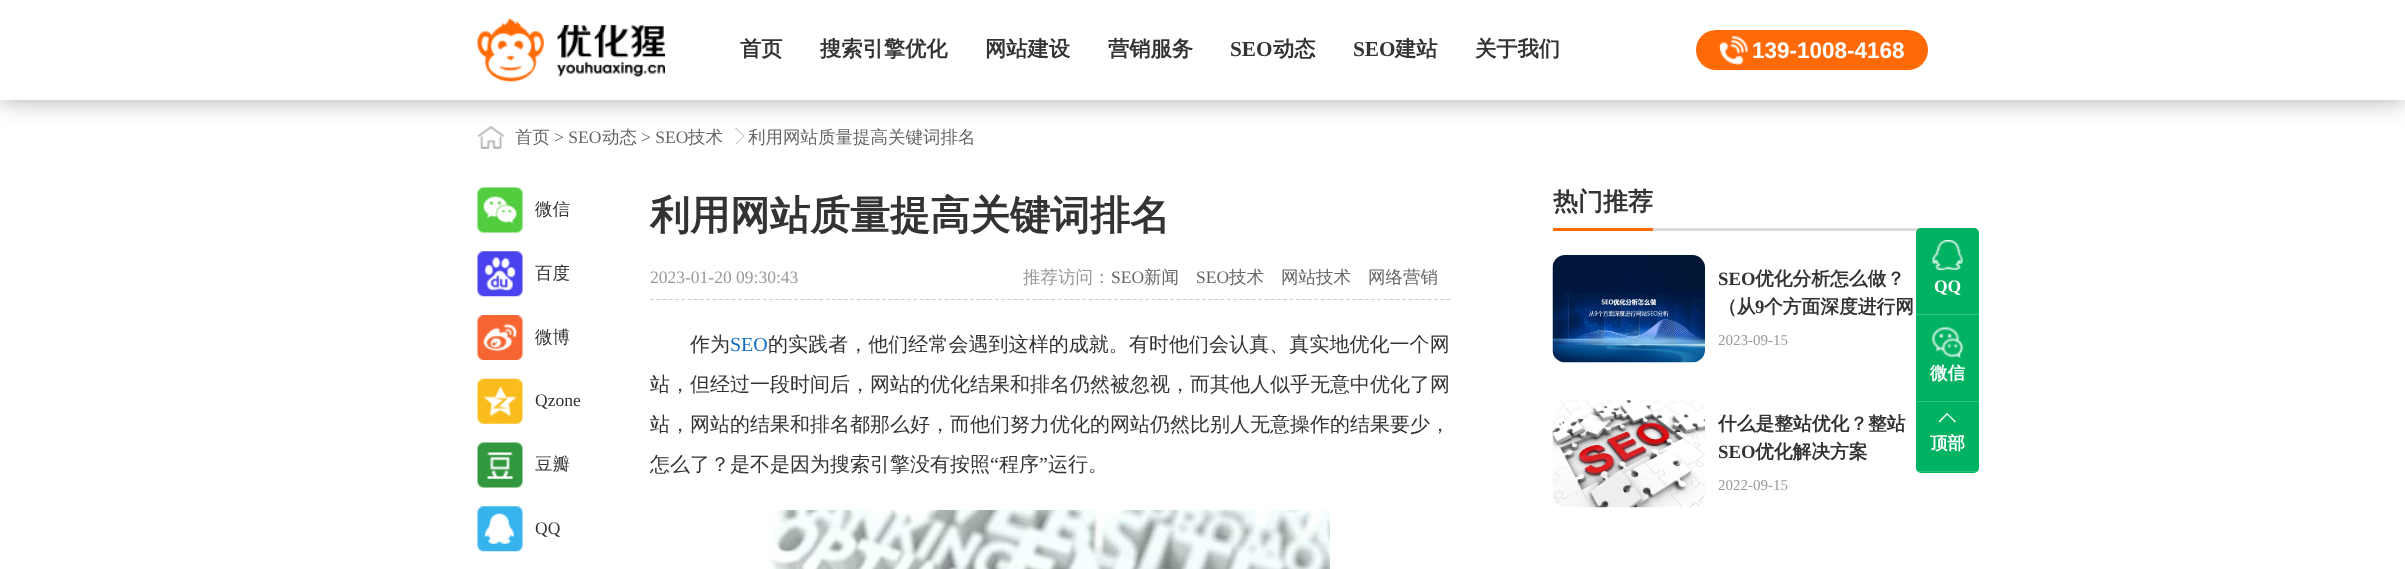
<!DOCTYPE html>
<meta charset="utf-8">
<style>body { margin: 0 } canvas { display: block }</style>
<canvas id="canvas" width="2405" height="569"></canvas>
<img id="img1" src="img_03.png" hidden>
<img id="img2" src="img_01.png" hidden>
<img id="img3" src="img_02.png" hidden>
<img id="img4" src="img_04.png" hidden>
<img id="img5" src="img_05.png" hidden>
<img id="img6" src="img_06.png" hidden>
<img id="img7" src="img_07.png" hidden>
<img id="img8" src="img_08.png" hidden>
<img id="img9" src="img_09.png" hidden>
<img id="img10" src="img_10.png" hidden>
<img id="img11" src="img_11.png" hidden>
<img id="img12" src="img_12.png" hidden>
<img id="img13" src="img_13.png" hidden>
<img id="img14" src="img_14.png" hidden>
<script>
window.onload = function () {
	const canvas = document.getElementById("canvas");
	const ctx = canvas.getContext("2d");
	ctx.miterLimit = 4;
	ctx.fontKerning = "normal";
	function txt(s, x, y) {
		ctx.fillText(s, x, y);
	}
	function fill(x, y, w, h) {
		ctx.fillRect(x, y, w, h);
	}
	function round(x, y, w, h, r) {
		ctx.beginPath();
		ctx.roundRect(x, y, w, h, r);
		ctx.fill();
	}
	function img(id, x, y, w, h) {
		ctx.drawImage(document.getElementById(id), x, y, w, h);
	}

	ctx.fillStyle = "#FFFFFF";
	fill(0, 0, 2405, 569);
	img("img1", 477, 126, 28, 23);
	ctx.fillStyle = "#CCCCCC";
	ctx.beginPath();
	ctx.moveTo(736, 127.5);
	ctx.lineTo(744.5, 136);
	ctx.lineTo(744, 137);
	ctx.lineTo(735, 128.5);
	ctx.closePath();
	ctx.fill();
	ctx.beginPath();
	ctx.moveTo(744, 135.5);
	ctx.lineTo(744.5, 136);
	ctx.lineTo(736, 145);
	ctx.lineTo(735, 144);
	ctx.closePath();
	ctx.fill();
	ctx.save();
	ctx.beginPath();
	ctx.rect(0, 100, 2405, 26);
	ctx.clip();
	ctx.fillStyle = "#AAAAAA";
	ctx.filter = "blur(12.5px)";
	ctx.beginPath();
	ctx.rect(0, 0, 2405, 100);
	ctx.fill();
	ctx.filter = "none";
	ctx.restore();
	img("img2", 477, 18, 188, 64);
	ctx.fillStyle = "#FF6A06";
	round(1696, 30, 232, 40, 20);
	img("img3", 1718, 36, 31, 29);
	img("img4", 477, 187, 46, 46);
	img("img5", 477, 251, 46, 46);
	img("img6", 477, 315, 46, 45);
	img("img7", 477, 378, 46, 46);
	img("img8", 477, 442, 46, 46);
	img("img9", 477, 506, 46, 46);
	ctx.beginPath();
	ctx.moveTo(650, 299.5);
	ctx.lineTo(1450, 299.5);
	ctx.strokeStyle = "#CCCCCC";
	ctx.lineWidth = 1.2;
	ctx.setLineDash([3.75, 2.52]);
	ctx.stroke();
	img("img10", 770, 510, 560, 59);
	ctx.fillStyle = "#DADADA";
	fill(1653, 228, 275, 3);
	ctx.fillStyle = "#FF6A06";
	fill(1553, 228, 100, 3);
	img("img11", 1552, 255, 153, 108);
	img("img12", 1552, 400, 153, 108);
	ctx.fillStyle = "#00B262";
	round(1916, 228, 63, 245, 5);
	ctx.fillStyle = "#33C181";
	fill(1916, 314, 63, 1);
	img("img13", 1931, 240, 32, 30);
	fill(1916, 401, 63, 1);
	img("img14", 1932, 327, 32, 31);
	ctx.fillStyle = "rgba(255, 255, 255, 0.2)";
	fill(1916, 471, 63, 1);
	ctx.fillStyle = "#FFFFFF";
	ctx.beginPath();
	ctx.moveTo(1938.5, 421.5);
	ctx.lineTo(1947, 413);
	ctx.lineTo(1948, 414);
	ctx.lineTo(1939.5, 422.5);
	ctx.closePath();
	ctx.fill();
	ctx.beginPath();
	ctx.moveTo(1946.5, 414);
	ctx.lineTo(1947, 413);
	ctx.lineTo(1956, 421.5);
	ctx.lineTo(1955, 422.5);
	ctx.closePath();
	ctx.fill();
	ctx.font = "bold 21.25px WenQuanYi Zen Hei";
	ctx.fillStyle = "#333333";
	txt("首页", 740, 56);
	txt("搜索引擎优化", 820, 56);
	txt("网站建设", 985, 56);
	txt("营销服务", 1108, 56);
	ctx.font = "bold 21.25px Liberation Serif";
	txt("SEO", 1230, 56);
	ctx.font = "bold 21.25px WenQuanYi Zen Hei";
	txt("动态", 1273, 56);
	ctx.font = "bold 21.25px Liberation Serif";
	txt("SEO", 1353, 56);
	ctx.font = "bold 21.25px WenQuanYi Zen Hei";
	txt("建站", 1395, 56);
	txt("关于我们", 1475, 56);
	ctx.font = "bold 22.5px Liberation Sans";
	ctx.fillStyle = "#FFFFFF";
	txt("139-1008-4168", 1752, 58);
	ctx.font = "500 17.5px WenQuanYi Zen Hei";
	ctx.fillStyle = "#666666";
	txt("首页", 515, 143);
	ctx.font = "17.5px Liberation Serif";
	txt("> SEO", 554, 143);
	ctx.font = "500 17.5px WenQuanYi Zen Hei";
	txt("动态", 602, 143);
	ctx.font = "17.5px Liberation Serif";
	txt("> SEO", 641, 143);
	ctx.font = "500 17.5px WenQuanYi Zen Hei";
	txt("技术", 688, 143);
	txt("利用网站质量提高关键词排名", 748, 143);
	ctx.fillStyle = "#333333";
	txt("微信", 535, 215);
	txt("百度", 535, 279);
	txt("微博", 535, 343);
	ctx.font = "17.5px Liberation Serif";
	txt("Qzone", 535, 406);
	ctx.font = "500 17.5px WenQuanYi Zen Hei";
	txt("豆瓣", 535, 470);
	ctx.font = "17.5px Liberation Serif";
	txt("QQ", 535, 534);
	ctx.font = "bold 40px WenQuanYi Zen Hei";
	txt("利用网站质量提高关键词排名", 650, 229);
	ctx.font = "17.5px Liberation Serif";
	ctx.fillStyle = "#999999";
	txt("2023-01-20 09:30:43", 650, 283);
	ctx.font = "500 17.5px WenQuanYi Zen Hei";
	txt("推荐访问：", 1023, 283);
	ctx.font = "17.5px Liberation Serif";
	ctx.fillStyle = "#666666";
	txt("SEO", 1111, 283);
	ctx.font = "500 17.5px WenQuanYi Zen Hei";
	txt("新闻", 1144, 283);
	ctx.font = "17.5px Liberation Serif";
	txt("SEO", 1196, 283);
	ctx.font = "500 17.5px WenQuanYi Zen Hei";
	txt("技术", 1229, 283);
	txt("网站技术", 1281, 283);
	txt("网络营销", 1368, 283);
	ctx.font = "500 20px WenQuanYi Zen Hei";
	ctx.fillStyle = "#333333";
	txt("作为", 690, 351);
	ctx.font = "20px Liberation Serif";
	ctx.fillStyle = "#136EC2";
	txt("SEO", 730, 351);
	ctx.letterSpacing = "0.05px";
	ctx.font = "500 20px WenQuanYi Zen Hei";
	ctx.fillStyle = "#333333";
	txt("的实践者，他们经常会遇到这样的成就。有时他们会认真、真实地优化一个网", 768, 351);
	ctx.letterSpacing = "0px";
	txt("站，但经过一段时间后，网站的优化结果和排名仍然被忽视，而其他人似乎无意中优化了网", 650, 391);
	txt("站，网站的结果和排名都那么好，而他们努力优化的网站仍然比别人无意操作的结果要少，", 650, 431);
	txt("怎么了？是不是因为搜索引擎没有按照", 650, 471);
	ctx.font = "20px Liberation Serif";
	txt("“", 990, 471);
	ctx.font = "500 20px WenQuanYi Zen Hei";
	txt("程序", 999, 471);
	ctx.font = "20px Liberation Serif";
	txt("”", 1039, 471);
	ctx.font = "500 20px WenQuanYi Zen Hei";
	txt("运行。", 1048, 471);
	ctx.font = "bold 25px WenQuanYi Zen Hei";
	txt("热门推荐", 1553, 210);
	ctx.font = "bold 18.75px Liberation Serif";
	txt("SEO", 1718, 285);
	ctx.font = "bold 18.75px WenQuanYi Zen Hei";
	txt("优化分析怎么做？", 1755, 285);
	txt("（从", 1718, 313);
	ctx.font = "bold 18.75px Liberation Serif";
	txt("9", 1755, 313);
	ctx.font = "bold 18.75px WenQuanYi Zen Hei";
	txt("个方面深度进行网", 1764, 313);
	ctx.font = "15px Liberation Serif";
	ctx.fillStyle = "#999999";
	txt("2023-09-15", 1718, 345);
	ctx.font = "bold 18.75px WenQuanYi Zen Hei";
	ctx.fillStyle = "#333333";
	txt("什么是整站优化？整站", 1718, 430);
	ctx.font = "bold 18.75px Liberation Serif";
	txt("SEO", 1718, 458);
	ctx.font = "bold 18.75px WenQuanYi Zen Hei";
	txt("优化解决方案", 1755, 458);
	ctx.font = "15px Liberation Serif";
	ctx.fillStyle = "#999999";
	txt("2022-09-15", 1718, 490);
	ctx.font = "bold 17.5px Liberation Serif";
	ctx.fillStyle = "#FFFFFF";
	txt("QQ", 1934, 292);
	ctx.font = "bold 17.5px WenQuanYi Zen Hei";
	txt("微信", 1930, 379);
	txt("顶部", 1930, 449);
};
</script>
